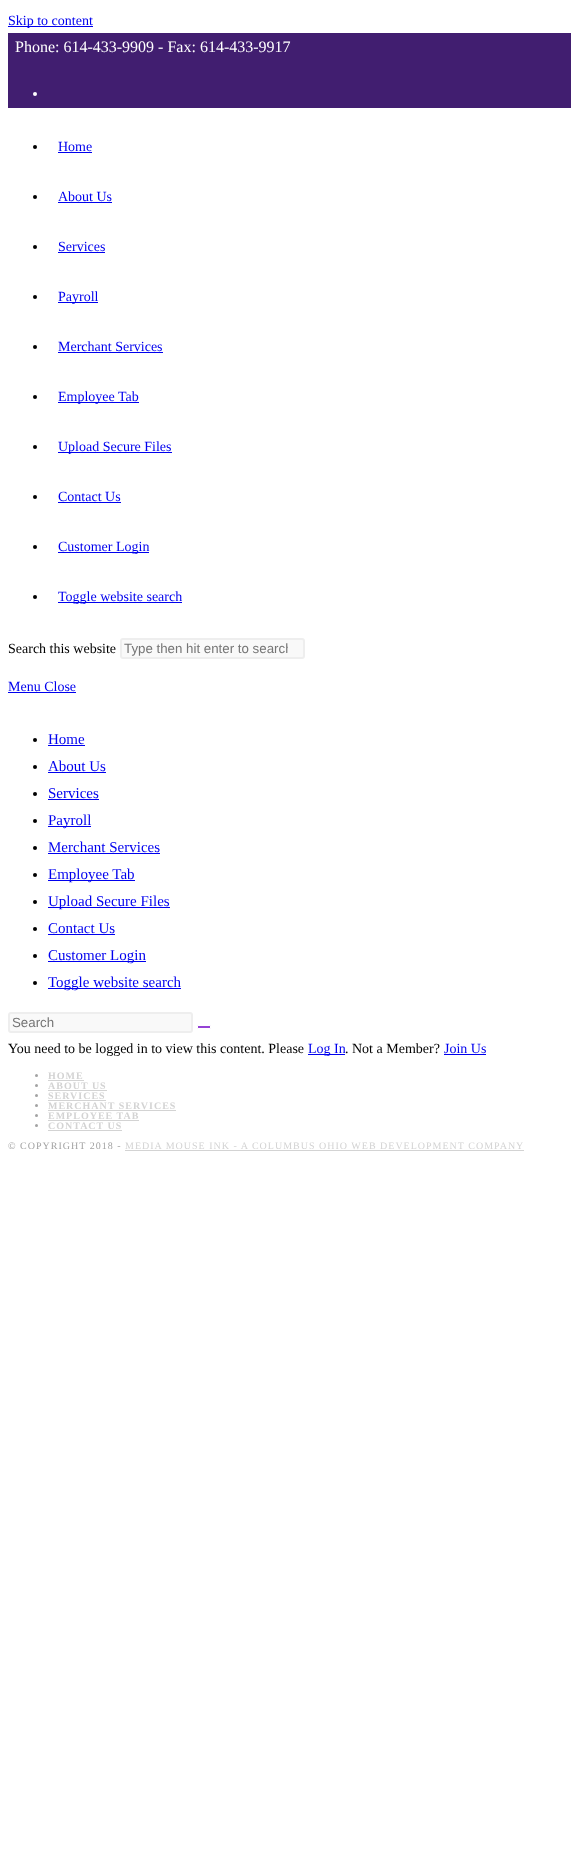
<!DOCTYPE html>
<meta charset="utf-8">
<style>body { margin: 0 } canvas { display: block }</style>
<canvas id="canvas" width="579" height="1875"></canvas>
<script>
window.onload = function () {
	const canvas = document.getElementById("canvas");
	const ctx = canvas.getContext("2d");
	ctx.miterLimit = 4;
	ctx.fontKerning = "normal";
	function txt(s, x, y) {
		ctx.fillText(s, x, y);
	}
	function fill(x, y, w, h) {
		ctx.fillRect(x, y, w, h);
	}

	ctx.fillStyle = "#FFFFFF";
	fill(0, 0, 579, 1875);
	ctx.fillStyle = "#0000EE";
	fill(8, 26, 85, 1);
	ctx.fillStyle = "#411E70";
	fill(8, 33, 563, 75);
	ctx.fillStyle = "#FFFFFF";
	ctx.beginPath();
	ctx.arc(35, 94, 2, 0, Math.PI * 2);
	ctx.fill();
	ctx.fillStyle = "#000000";
	ctx.beginPath();
	ctx.arc(35, 147, 2, 0, Math.PI * 2);
	ctx.fill();
	ctx.fillStyle = "#0000EE";
	fill(58, 152, 34, 1);
	ctx.fillStyle = "#000000";
	ctx.beginPath();
	ctx.arc(35, 197, 2, 0, Math.PI * 2);
	ctx.fill();
	ctx.fillStyle = "#0000EE";
	fill(58, 202, 54, 1);
	ctx.fillStyle = "#000000";
	ctx.beginPath();
	ctx.arc(35, 247, 2, 0, Math.PI * 2);
	ctx.fill();
	ctx.fillStyle = "#0000EE";
	fill(58, 252, 47, 1);
	ctx.fillStyle = "#000000";
	ctx.beginPath();
	ctx.arc(35, 297, 2, 0, Math.PI * 2);
	ctx.fill();
	ctx.fillStyle = "#0000EE";
	fill(58, 302, 40, 1);
	ctx.fillStyle = "#000000";
	ctx.beginPath();
	ctx.arc(35, 347, 2, 0, Math.PI * 2);
	ctx.fill();
	ctx.fillStyle = "#0000EE";
	fill(58, 352, 105, 1);
	ctx.fillStyle = "#000000";
	ctx.beginPath();
	ctx.arc(35, 397, 2, 0, Math.PI * 2);
	ctx.fill();
	ctx.fillStyle = "#0000EE";
	fill(58, 402, 81, 1);
	ctx.fillStyle = "#000000";
	ctx.beginPath();
	ctx.arc(35, 447, 2, 0, Math.PI * 2);
	ctx.fill();
	ctx.fillStyle = "#0000EE";
	fill(58, 452, 114, 1);
	ctx.fillStyle = "#000000";
	ctx.beginPath();
	ctx.arc(35, 497, 2, 0, Math.PI * 2);
	ctx.fill();
	ctx.fillStyle = "#0000EE";
	fill(58, 502, 63, 1);
	ctx.fillStyle = "#000000";
	ctx.beginPath();
	ctx.arc(35, 547, 2, 0, Math.PI * 2);
	ctx.fill();
	ctx.fillStyle = "#0000EE";
	fill(58, 552, 91, 1);
	ctx.fillStyle = "#000000";
	ctx.beginPath();
	ctx.arc(35, 597, 2, 0, Math.PI * 2);
	ctx.fill();
	ctx.fillStyle = "#0000EE";
	fill(58, 602, 124, 1);
	ctx.fillStyle = "#F9F9F9";
	ctx.beginPath();
	ctx.roundRect(121, 639, 183, 19, 2);
	ctx.fill();
	ctx.strokeStyle = "#EEEEEE";
	ctx.lineWidth = 2;
	ctx.stroke();
	ctx.fillStyle = "#0000EE";
	fill(8, 692, 68, 1);
	ctx.fillStyle = "#000000";
	ctx.beginPath();
	ctx.arc(35, 740, 2, 0, Math.PI * 2);
	ctx.fill();
	ctx.fillStyle = "#0000EE";
	fill(48, 745, 37, 1);
	ctx.fillStyle = "#000000";
	ctx.beginPath();
	ctx.arc(35, 767, 2, 0, Math.PI * 2);
	ctx.fill();
	ctx.fillStyle = "#0000EE";
	fill(48, 772, 58, 1);
	ctx.fillStyle = "#000000";
	ctx.beginPath();
	ctx.arc(35, 794, 2, 0, Math.PI * 2);
	ctx.fill();
	ctx.fillStyle = "#0000EE";
	fill(48, 799, 51, 1);
	ctx.fillStyle = "#000000";
	ctx.beginPath();
	ctx.arc(35, 821, 2, 0, Math.PI * 2);
	ctx.fill();
	ctx.fillStyle = "#0000EE";
	fill(48, 826, 43, 1);
	ctx.fillStyle = "#000000";
	ctx.beginPath();
	ctx.arc(35, 848, 2, 0, Math.PI * 2);
	ctx.fill();
	ctx.fillStyle = "#0000EE";
	fill(48, 853, 112, 1);
	ctx.fillStyle = "#000000";
	ctx.beginPath();
	ctx.arc(35, 875, 2, 0, Math.PI * 2);
	ctx.fill();
	ctx.fillStyle = "#0000EE";
	fill(48, 880, 87, 1);
	ctx.fillStyle = "#000000";
	ctx.beginPath();
	ctx.arc(35, 902, 2, 0, Math.PI * 2);
	ctx.fill();
	ctx.fillStyle = "#0000EE";
	fill(48, 907, 122, 1);
	ctx.fillStyle = "#000000";
	ctx.beginPath();
	ctx.arc(35, 929, 2, 0, Math.PI * 2);
	ctx.fill();
	ctx.fillStyle = "#0000EE";
	fill(48, 934, 67, 1);
	ctx.fillStyle = "#000000";
	ctx.beginPath();
	ctx.arc(35, 956, 2, 0, Math.PI * 2);
	ctx.fill();
	ctx.fillStyle = "#0000EE";
	fill(48, 961, 98, 1);
	ctx.fillStyle = "#000000";
	ctx.beginPath();
	ctx.arc(35, 983, 2, 0, Math.PI * 2);
	ctx.fill();
	ctx.fillStyle = "#0000EE";
	fill(48, 988, 133, 1);
	ctx.fillStyle = "#F9F9F9";
	ctx.beginPath();
	ctx.roundRect(9, 1013, 183, 19, 2);
	ctx.fill();
	ctx.stroke();
	ctx.fillStyle = "#9543D5";
	ctx.beginPath();
	ctx.rect(197.5, 1025.5, 13, 3);
	ctx.fill();
	ctx.strokeStyle = "#FFFFFF";
	ctx.lineWidth = 1;
	ctx.stroke();
	ctx.fillStyle = "#0000EE";
	fill(308, 1054, 37, 1);
	fill(444, 1054, 42, 1);
	ctx.fillStyle = "#A3A3A3";
	ctx.beginPath();
	ctx.arc(36.5, 1075.5, 1.5, 0, Math.PI * 2);
	ctx.fill();
	ctx.fillStyle = "#D3D3D3";
	fill(48, 1080, 36, 1);
	ctx.fillStyle = "#A3A3A3";
	ctx.beginPath();
	ctx.arc(36.5, 1085.5, 1.5, 0, Math.PI * 2);
	ctx.fill();
	ctx.fillStyle = "#D3D3D3";
	fill(48, 1090, 59, 1);
	ctx.fillStyle = "#A3A3A3";
	ctx.beginPath();
	ctx.arc(36.5, 1095.5, 1.5, 0, Math.PI * 2);
	ctx.fill();
	ctx.fillStyle = "#D3D3D3";
	fill(48, 1100, 58, 1);
	ctx.fillStyle = "#A3A3A3";
	ctx.beginPath();
	ctx.arc(36.5, 1105.5, 1.5, 0, Math.PI * 2);
	ctx.fill();
	ctx.fillStyle = "#D3D3D3";
	fill(48, 1110, 128, 1);
	ctx.fillStyle = "#A3A3A3";
	ctx.beginPath();
	ctx.arc(36.5, 1115.5, 1.5, 0, Math.PI * 2);
	ctx.fill();
	ctx.fillStyle = "#D3D3D3";
	fill(48, 1120, 91, 1);
	ctx.fillStyle = "#A3A3A3";
	ctx.beginPath();
	ctx.arc(36.5, 1125.5, 1.5, 0, Math.PI * 2);
	ctx.fill();
	ctx.fillStyle = "#D3D3D3";
	fill(48, 1130, 74, 1);
	fill(125, 1150, 399, 1);
	ctx.font = "14px Liberation Serif";
	ctx.fillStyle = "#0000EE";
	txt("Skip to content", 8, 25);
	ctx.font = "16px Liberation Serif";
	ctx.fillStyle = "#FFFFFF";
	txt("Phone: 614-433-9909 - Fax: 614-433-9917", 15, 52);
	ctx.font = "14px Liberation Serif";
	ctx.fillStyle = "#0000EE";
	txt("Home", 58, 151);
	txt("About Us", 58, 201);
	txt("Services", 58, 251);
	txt("Payroll", 58, 301);
	txt("Merchant Services", 58, 351);
	txt("Employee Tab", 58, 401);
	txt("Upload Secure Files", 58, 451);
	txt("Contact Us", 58, 501);
	txt("Customer Login", 58, 551);
	txt("Toggle website search", 58, 601);
	ctx.fillStyle = "#000000";
	txt("Search this website", 8, 653);
	ctx.save();
	ctx.beginPath();
	ctx.rect(124, 641, 164, 15);
	ctx.clip();
	ctx.font = "13.3px Liberation Sans";
	ctx.fillStyle = "#757575";
	txt("Type then hit enter to search", 124, 653);
	ctx.restore();
	ctx.fillStyle = "#0000EE";
	txt("Menu Close", 8, 691);
	ctx.font = "15px Liberation Serif";
	txt("Home", 48, 744);
	txt("About Us", 48, 771);
	txt("Services", 48, 798);
	txt("Payroll", 48, 825);
	txt("Merchant Services", 48, 852);
	txt("Employee Tab", 48, 879);
	txt("Upload Secure Files", 48, 906);
	txt("Contact Us", 48, 933);
	txt("Customer Login", 48, 960);
	txt("Toggle website search", 48, 987);
	ctx.font = "13.3px Liberation Sans";
	ctx.fillStyle = "#757575";
	txt("Search", 12, 1027);
	ctx.font = "14px Liberation Serif";
	ctx.fillStyle = "#000000";
	txt("You need to be logged in to view this content. Please", 8, 1053);
	ctx.fillStyle = "#0000EE";
	txt("Log In", 308, 1053);
	ctx.fillStyle = "#000000";
	txt(". Not a Member?", 345, 1053);
	ctx.fillStyle = "#0000EE";
	txt("Join Us", 444, 1053);
	ctx.letterSpacing = "1px";
	ctx.font = "bold 10px Liberation Serif";
	ctx.fillStyle = "#D3D3D3";
	txt("HOME", 48, 1079);
	txt("ABOUT US", 48, 1089);
	txt("SERVICES", 48, 1099);
	txt("MERCHANT SERVICES", 48, 1109);
	txt("EMPLOYEE TAB", 48, 1119);
	txt("CONTACT US", 48, 1129);
	ctx.font = "10px Liberation Serif";
	ctx.fillStyle = "#A3A3A3";
	txt("© COPYRIGHT 2018 -", 8, 1149);
	ctx.fillStyle = "#D3D3D3";
	txt("MEDIA MOUSE INK - A COLUMBUS OHIO WEB DEVELOPMENT COMPANY", 125, 1149);
};
</script>
